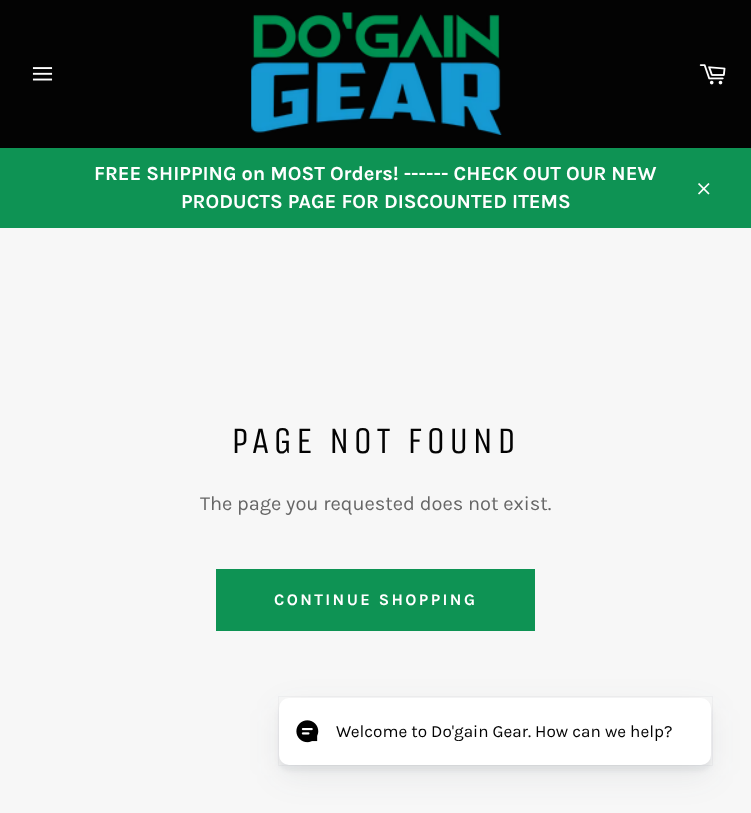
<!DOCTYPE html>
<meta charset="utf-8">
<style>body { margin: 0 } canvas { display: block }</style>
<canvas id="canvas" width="751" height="813"></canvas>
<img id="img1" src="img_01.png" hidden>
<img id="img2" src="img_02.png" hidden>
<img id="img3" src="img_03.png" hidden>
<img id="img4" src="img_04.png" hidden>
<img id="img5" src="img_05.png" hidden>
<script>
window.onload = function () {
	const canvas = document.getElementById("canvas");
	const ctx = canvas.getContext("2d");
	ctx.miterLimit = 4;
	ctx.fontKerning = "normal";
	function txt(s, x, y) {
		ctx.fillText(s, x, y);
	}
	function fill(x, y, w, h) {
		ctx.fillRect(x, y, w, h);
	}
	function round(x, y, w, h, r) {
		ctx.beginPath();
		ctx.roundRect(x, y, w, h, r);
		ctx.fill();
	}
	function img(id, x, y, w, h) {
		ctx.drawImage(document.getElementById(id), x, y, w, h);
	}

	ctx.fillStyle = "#F7F7F7";
	fill(0, 0, 751, 813);
	ctx.fillStyle = "#030303";
	fill(0, 0, 751, 148);
	img("img1", 32, 67, 21, 14);
	img("img2", 251, 12, 251, 123);
	img("img3", 699, 64, 27, 21);
	ctx.fillStyle = "#0E9354";
	fill(0, 148, 751, 80);
	img("img4", 698, 183, 12, 12);
	fill(216, 569, 319, 62);
	ctx.fillStyle = "rgba(55, 63, 71, 0.08)";
	ctx.filter = "blur(16px)";
	ctx.beginPath();
	ctx.roundRect(279, 708, 432, 68, 10);
	ctx.fill();
	ctx.filter = "none";
	ctx.filter = "blur(2.5px)";
	ctx.beginPath();
	ctx.roundRect(279, 703, 432, 68, 10);
	ctx.fill();
	ctx.filter = "none";
	ctx.strokeStyle = "rgba(55, 63, 71, 0.04)";
	ctx.strokeRect(278.5, 696.5, 434, 69);
	ctx.fillStyle = "#FFFFFF";
	round(279, 698, 432, 67, 10);
	img("img5", 296, 720, 23, 23);
	ctx.font = "bold 20px Karla";
	txt("FREE SHIPPING on MOST Orders! ------ CHECK OUT OUR NEW", 94, 180);
	txt("PRODUCTS PAGE FOR DISCOUNTED ITEMS", 181, 208);
	ctx.letterSpacing = "3.75px";
	ctx.font = "37.5px Unica One";
	ctx.fillStyle = "#030303";
	txt("PAGE NOT FOUND", 231, 453);
	ctx.letterSpacing = "0px";
	ctx.font = "20px Karla";
	ctx.fillStyle = "#666666";
	txt("The page you requested does not exist.", 200, 510);
	ctx.letterSpacing = "2.4px";
	ctx.font = "bold 16.25px Karla";
	ctx.fillStyle = "#FFFFFF";
	txt("CONTINUE SHOPPING", 274, 605);
	ctx.save();
	ctx.beginPath();
	ctx.rect(336, 721, 360, 20);
	ctx.clip();
	ctx.letterSpacing = "0px";
	ctx.font = "17.1px Karla";
	ctx.fillStyle = "#030303";
	txt("Welcome to Do'gain Gear. How can we help?", 336, 737);
	ctx.restore();
};
</script>
